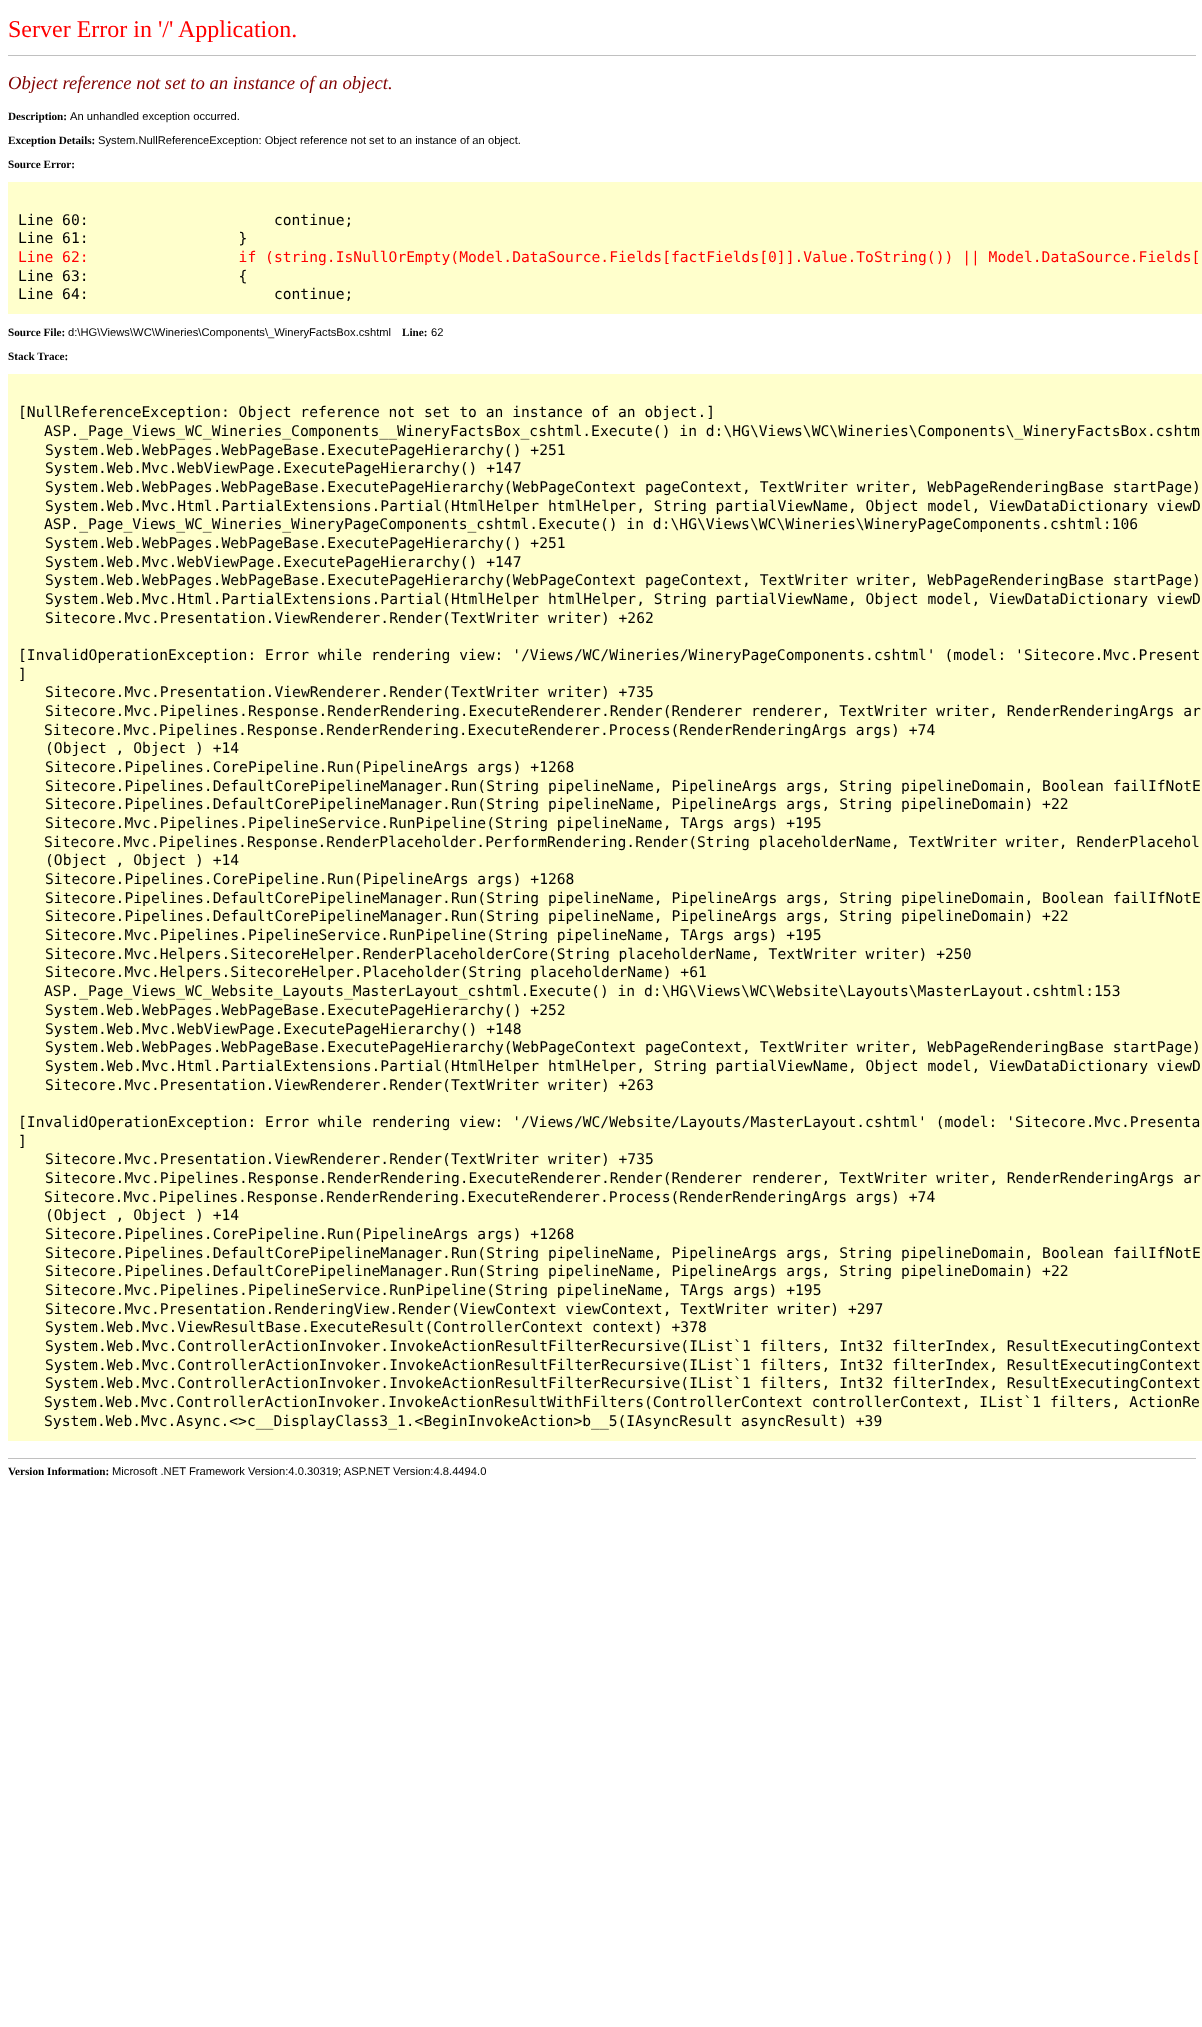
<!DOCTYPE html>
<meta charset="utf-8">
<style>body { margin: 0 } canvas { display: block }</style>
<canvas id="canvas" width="1202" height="2027"></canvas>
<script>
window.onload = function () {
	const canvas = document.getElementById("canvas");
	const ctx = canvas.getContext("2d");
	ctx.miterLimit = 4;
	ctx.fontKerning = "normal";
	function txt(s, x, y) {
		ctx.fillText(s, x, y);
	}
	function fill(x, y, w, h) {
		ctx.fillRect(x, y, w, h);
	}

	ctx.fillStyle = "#FFFFFF";
	fill(0, 0, 1202, 2027);
	ctx.fillStyle = "#C0C0C0";
	fill(8, 55, 1188, 1);
	ctx.fillStyle = "#FFFFCC";
	fill(8, 182, 1194, 132);
	fill(8, 374, 1194, 1067);
	ctx.fillStyle = "#C0C0C0";
	fill(8, 1458, 1188, 1);
	ctx.font = "24px Liberation Serif";
	ctx.fillStyle = "#FF0000";
	txt("Server Error in '/' Application.", 8, 37);
	ctx.font = "italic 18.7px Liberation Serif";
	ctx.fillStyle = "#800000";
	txt("Object reference not set to an instance of an object.", 8, 89);
	ctx.font = "bold 11.2px Liberation Serif";
	ctx.fillStyle = "#000000";
	txt("Description:", 8, 120);
	ctx.font = "11.2px Liberation Sans";
	txt("An unhandled exception occurred.", 70, 120);
	ctx.font = "bold 11.2px Liberation Serif";
	txt("Exception Details:", 8, 144);
	ctx.font = "11.2px Liberation Sans";
	txt("System.NullReferenceException: Object reference not set to an instance of an object.", 98, 144);
	ctx.font = "bold 11.2px Liberation Serif";
	txt("Source Error:", 8, 168);
	ctx.font = "14.67px DejaVu Sans Mono";
	txt("Line 60:                     continue;", 18, 225);
	txt("Line 61:                 }", 18, 243);
	ctx.fillStyle = "#FF0000";
	txt("Line 62:                 if (string.IsNullOrEmpty(Model.DataSource.Fields[factFields[0]].Value.ToString()) || Model.DataSource.Fields[", 18, 262);
	ctx.fillStyle = "#000000";
	txt("Line 63:                 {", 18, 281);
	txt("Line 64:                     continue;", 18, 299);
	ctx.font = "bold 11.2px Liberation Serif";
	txt("Source File:", 8, 336);
	ctx.font = "11.2px Liberation Sans";
	txt("d:\\HG\\Views\\WC\\Wineries\\Components\\_WineryFactsBox.cshtml", 68, 336);
	ctx.font = "bold 11.2px Liberation Serif";
	txt("Line:", 402, 336);
	ctx.font = "11.2px Liberation Sans";
	txt("62", 431, 336);
	ctx.font = "bold 11.2px Liberation Serif";
	txt("Stack Trace:", 8, 360);
	ctx.font = "14.67px DejaVu Sans Mono";
	txt("[NullReferenceException: Object reference not set to an instance of an object.]", 18, 417);
	txt("ASP._Page_Views_WC_Wineries_Components__WineryFactsBox_cshtml.Execute() in d:\\HG\\Views\\WC\\Wineries\\Components\\_WineryFactsBox.cshtm", 44, 436);
	txt("System.Web.WebPages.WebPageBase.ExecutePageHierarchy() +251", 45, 455);
	txt("System.Web.Mvc.WebViewPage.ExecutePageHierarchy() +147", 45, 473);
	txt("System.Web.WebPages.WebPageBase.ExecutePageHierarchy(WebPageContext pageContext, TextWriter writer, WebPageRenderingBase startPage)", 45, 492);
	txt("System.Web.Mvc.Html.PartialExtensions.Partial(HtmlHelper htmlHelper, String partialViewName, Object model, ViewDataDictionary viewD", 45, 511);
	txt("ASP._Page_Views_WC_Wineries_WineryPageComponents_cshtml.Execute() in d:\\HG\\Views\\WC\\Wineries\\WineryPageComponents.cshtml:106", 44, 529);
	txt("System.Web.WebPages.WebPageBase.ExecutePageHierarchy() +251", 45, 548);
	txt("System.Web.Mvc.WebViewPage.ExecutePageHierarchy() +147", 45, 567);
	txt("System.Web.WebPages.WebPageBase.ExecutePageHierarchy(WebPageContext pageContext, TextWriter writer, WebPageRenderingBase startPage)", 45, 585);
	txt("System.Web.Mvc.Html.PartialExtensions.Partial(HtmlHelper htmlHelper, String partialViewName, Object model, ViewDataDictionary viewD", 45, 604);
	txt("Sitecore.Mvc.Presentation.ViewRenderer.Render(TextWriter writer) +262", 45, 623);
	txt("[InvalidOperationException: Error while rendering view: '/Views/WC/Wineries/WineryPageComponents.cshtml' (model: 'Sitecore.Mvc.Present", 18, 660);
	txt("]", 18, 679);
	txt("Sitecore.Mvc.Presentation.ViewRenderer.Render(TextWriter writer) +735", 45, 697);
	txt("Sitecore.Mvc.Pipelines.Response.RenderRendering.ExecuteRenderer.Render(Renderer renderer, TextWriter writer, RenderRenderingArgs ar", 45, 716);
	txt("Sitecore.Mvc.Pipelines.Response.RenderRendering.ExecuteRenderer.Process(RenderRenderingArgs args) +74", 44, 735);
	txt("(Object , Object ) +14", 45, 753);
	txt("Sitecore.Pipelines.CorePipeline.Run(PipelineArgs args) +1268", 45, 772);
	txt("Sitecore.Pipelines.DefaultCorePipelineManager.Run(String pipelineName, PipelineArgs args, String pipelineDomain, Boolean failIfNotE", 45, 791);
	txt("Sitecore.Pipelines.DefaultCorePipelineManager.Run(String pipelineName, PipelineArgs args, String pipelineDomain) +22", 45, 809);
	txt("Sitecore.Mvc.Pipelines.PipelineService.RunPipeline(String pipelineName, TArgs args) +195", 45, 828);
	txt("Sitecore.Mvc.Pipelines.Response.RenderPlaceholder.PerformRendering.Render(String placeholderName, TextWriter writer, RenderPlacehol", 44, 847);
	txt("(Object , Object ) +14", 45, 865);
	txt("Sitecore.Pipelines.CorePipeline.Run(PipelineArgs args) +1268", 45, 884);
	txt("Sitecore.Pipelines.DefaultCorePipelineManager.Run(String pipelineName, PipelineArgs args, String pipelineDomain, Boolean failIfNotE", 45, 903);
	txt("Sitecore.Pipelines.DefaultCorePipelineManager.Run(String pipelineName, PipelineArgs args, String pipelineDomain) +22", 45, 921);
	txt("Sitecore.Mvc.Pipelines.PipelineService.RunPipeline(String pipelineName, TArgs args) +195", 45, 940);
	txt("Sitecore.Mvc.Helpers.SitecoreHelper.RenderPlaceholderCore(String placeholderName, TextWriter writer) +250", 45, 959);
	txt("Sitecore.Mvc.Helpers.SitecoreHelper.Placeholder(String placeholderName) +61", 45, 977);
	txt("ASP._Page_Views_WC_Website_Layouts_MasterLayout_cshtml.Execute() in d:\\HG\\Views\\WC\\Website\\Layouts\\MasterLayout.cshtml:153", 44, 996);
	txt("System.Web.WebPages.WebPageBase.ExecutePageHierarchy() +252", 45, 1015);
	txt("System.Web.Mvc.WebViewPage.ExecutePageHierarchy() +148", 45, 1034);
	txt("System.Web.WebPages.WebPageBase.ExecutePageHierarchy(WebPageContext pageContext, TextWriter writer, WebPageRenderingBase startPage)", 45, 1052);
	txt("System.Web.Mvc.Html.PartialExtensions.Partial(HtmlHelper htmlHelper, String partialViewName, Object model, ViewDataDictionary viewD", 45, 1071);
	txt("Sitecore.Mvc.Presentation.ViewRenderer.Render(TextWriter writer) +263", 45, 1090);
	txt("[InvalidOperationException: Error while rendering view: '/Views/WC/Website/Layouts/MasterLayout.cshtml' (model: 'Sitecore.Mvc.Presenta", 18, 1127);
	txt("]", 18, 1146);
	txt("Sitecore.Mvc.Presentation.ViewRenderer.Render(TextWriter writer) +735", 45, 1164);
	txt("Sitecore.Mvc.Pipelines.Response.RenderRendering.ExecuteRenderer.Render(Renderer renderer, TextWriter writer, RenderRenderingArgs ar", 45, 1183);
	txt("Sitecore.Mvc.Pipelines.Response.RenderRendering.ExecuteRenderer.Process(RenderRenderingArgs args) +74", 44, 1202);
	txt("(Object , Object ) +14", 45, 1220);
	txt("Sitecore.Pipelines.CorePipeline.Run(PipelineArgs args) +1268", 45, 1239);
	txt("Sitecore.Pipelines.DefaultCorePipelineManager.Run(String pipelineName, PipelineArgs args, String pipelineDomain, Boolean failIfNotE", 45, 1258);
	txt("Sitecore.Pipelines.DefaultCorePipelineManager.Run(String pipelineName, PipelineArgs args, String pipelineDomain) +22", 45, 1276);
	txt("Sitecore.Mvc.Pipelines.PipelineService.RunPipeline(String pipelineName, TArgs args) +195", 45, 1295);
	txt("Sitecore.Mvc.Presentation.RenderingView.Render(ViewContext viewContext, TextWriter writer) +297", 45, 1314);
	txt("System.Web.Mvc.ViewResultBase.ExecuteResult(ControllerContext context) +378", 45, 1332);
	txt("System.Web.Mvc.ControllerActionInvoker.InvokeActionResultFilterRecursive(IList`1 filters, Int32 filterIndex, ResultExecutingContext", 45, 1351);
	txt("System.Web.Mvc.ControllerActionInvoker.InvokeActionResultFilterRecursive(IList`1 filters, Int32 filterIndex, ResultExecutingContext", 45, 1370);
	txt("System.Web.Mvc.ControllerActionInvoker.InvokeActionResultFilterRecursive(IList`1 filters, Int32 filterIndex, ResultExecutingContext", 45, 1388);
	txt("System.Web.Mvc.ControllerActionInvoker.InvokeActionResultWithFilters(ControllerContext controllerContext, IList`1 filters, ActionRe", 44, 1407);
	txt("System.Web.Mvc.Async.<>c__DisplayClass3_1.<BeginInvokeAction>b__5(IAsyncResult asyncResult) +39", 44, 1426);
	ctx.font = "bold 11.2px Liberation Serif";
	txt("Version Information:", 8, 1475);
	ctx.font = "11.2px Liberation Sans";
	txt("Microsoft .NET Framework Version:4.0.30319; ASP.NET Version:4.8.4494.0", 112, 1475);
};
</script>
